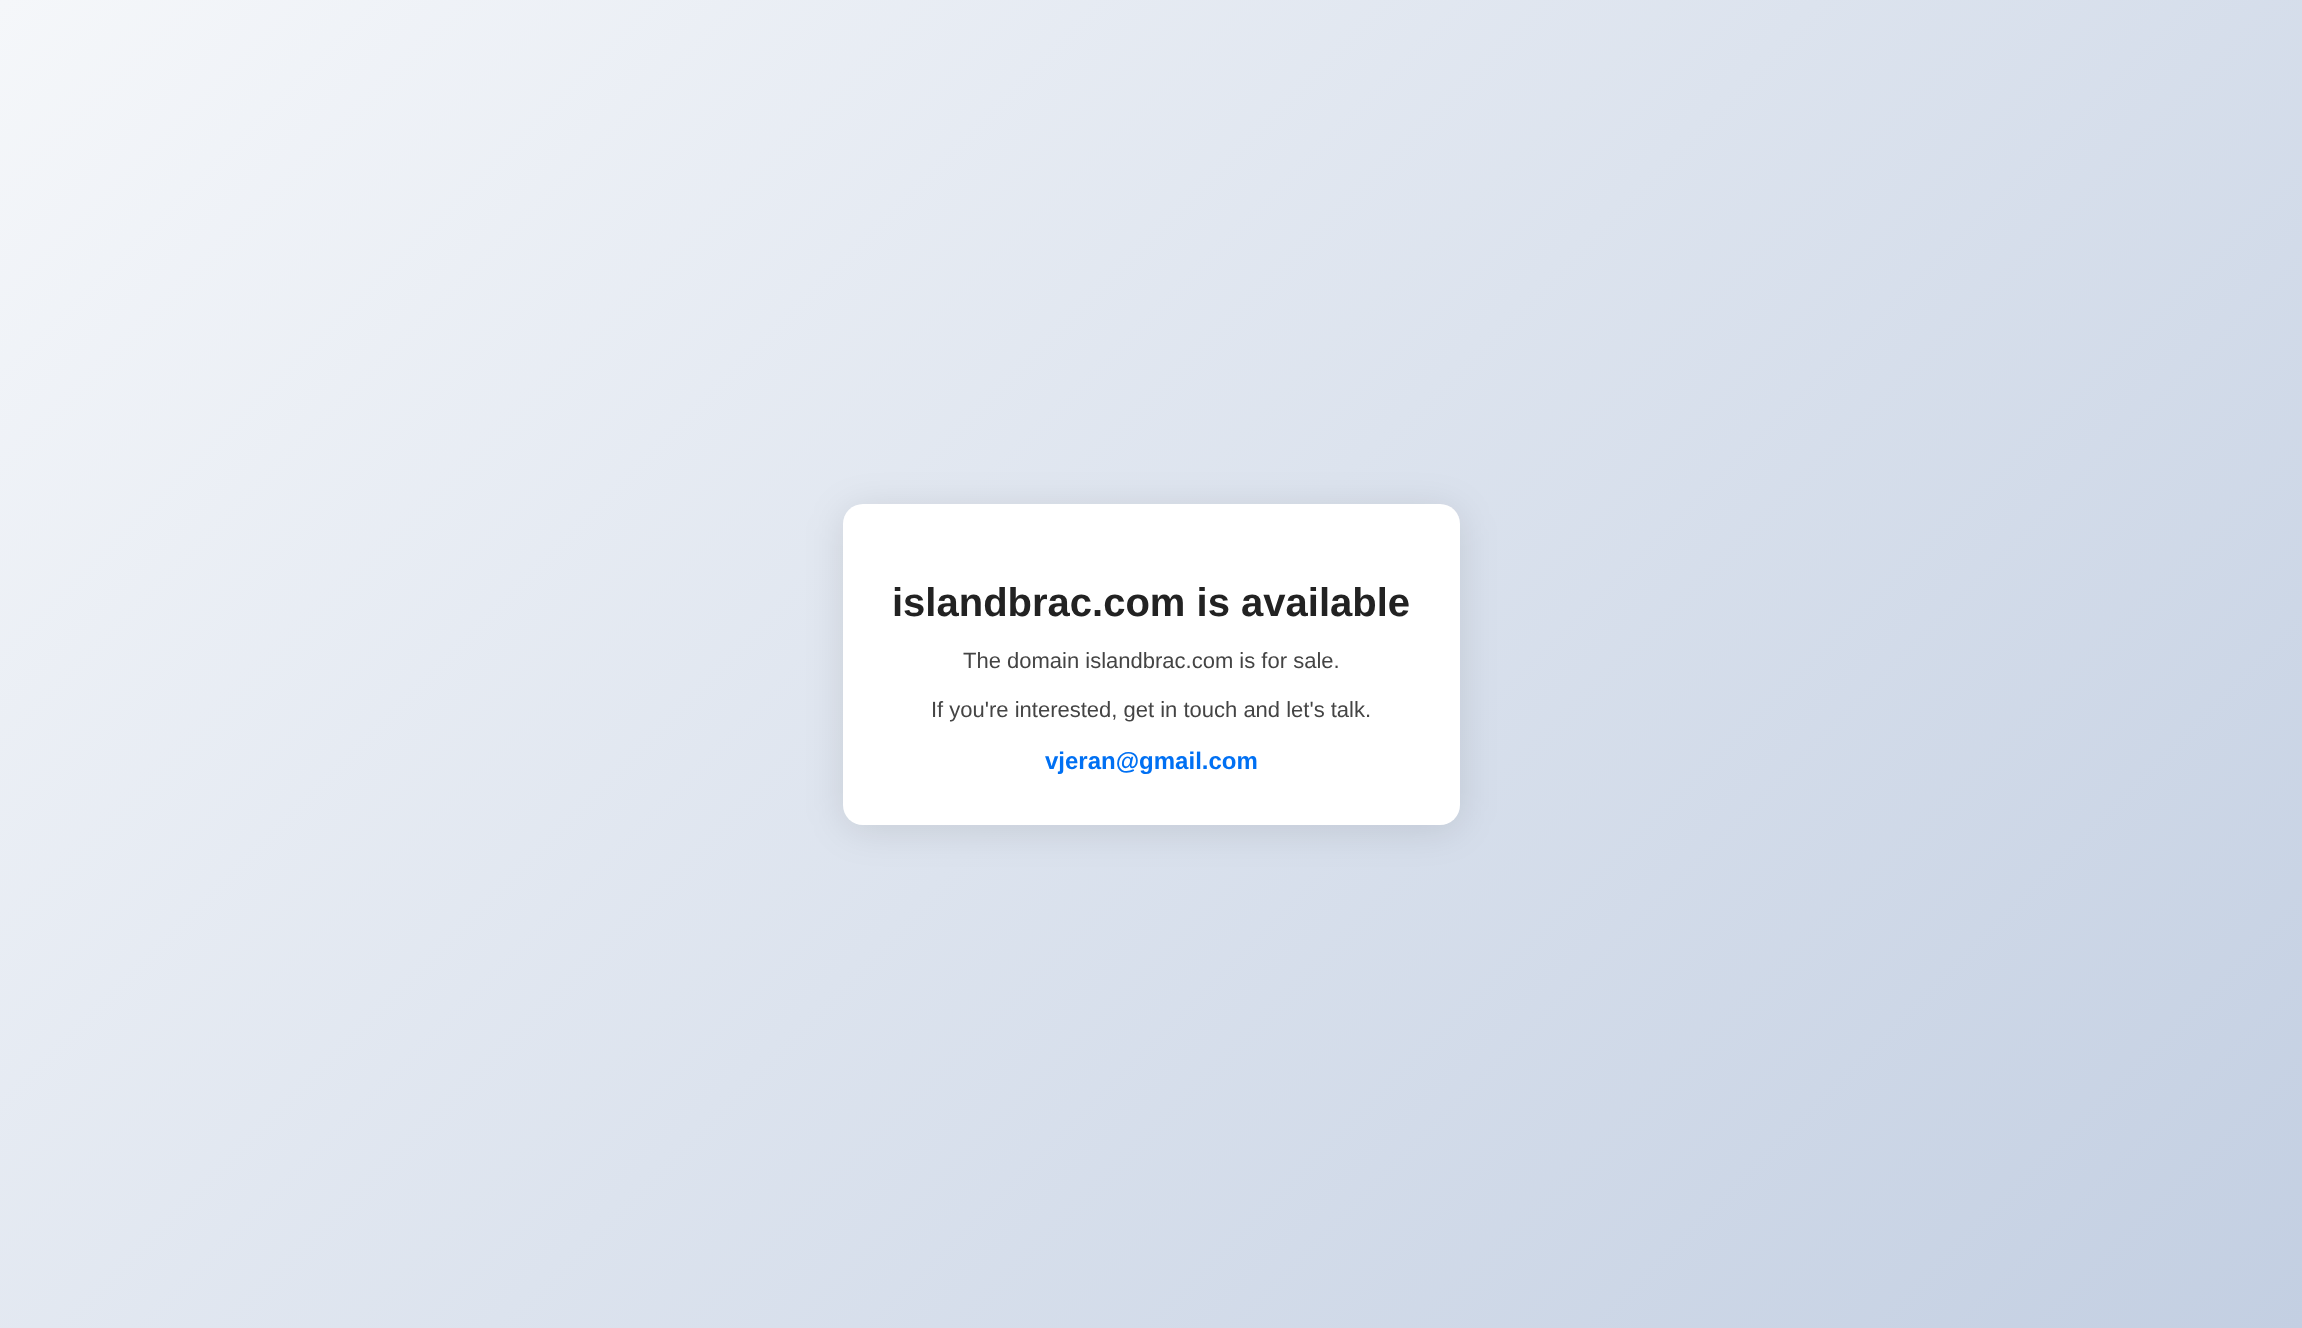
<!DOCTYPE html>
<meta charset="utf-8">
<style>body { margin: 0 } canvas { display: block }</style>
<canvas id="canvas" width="2302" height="1328"></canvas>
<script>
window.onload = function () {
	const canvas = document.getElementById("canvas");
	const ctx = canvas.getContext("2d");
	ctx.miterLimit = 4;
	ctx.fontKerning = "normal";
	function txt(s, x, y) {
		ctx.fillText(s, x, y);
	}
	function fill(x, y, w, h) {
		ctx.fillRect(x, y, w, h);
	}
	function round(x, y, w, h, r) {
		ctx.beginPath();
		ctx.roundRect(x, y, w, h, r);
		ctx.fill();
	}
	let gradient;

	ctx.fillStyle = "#FFFFFF";
	fill(0, 0, 2302, 1328);
	gradient = ctx.createLinearGradient(243, -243, 2059, 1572);
	gradient.addColorStop(0, "#F5F7FA");
	gradient.addColorStop(1, "#C3CFE2");
	ctx.fillStyle = gradient;
	fill(0, 0, 2302, 1328);
	ctx.fillStyle = "rgba(0, 0, 0, 0.1)";
	ctx.filter = "blur(19px)";
	ctx.beginPath();
	ctx.roundRect(843, 509, 617, 321, 20);
	ctx.fill();
	ctx.filter = "none";
	ctx.fillStyle = "#FFFFFF";
	round(843, 504, 617, 321, 20);
	ctx.font = "bold 40px Liberation Sans";
	ctx.fillStyle = "#222222";
	txt("islandbrac.com is available", 892, 616);
	ctx.font = "22px Liberation Sans";
	ctx.fillStyle = "#444444";
	txt("The domain islandbrac.com is for sale.", 963, 668);
	txt("If you're interested, get in touch and let's talk.", 931, 717);
	ctx.font = "bold 24px Liberation Sans";
	ctx.fillStyle = "#0070F3";
	txt("vjeran@gmail.com", 1045, 769);
};
</script>
